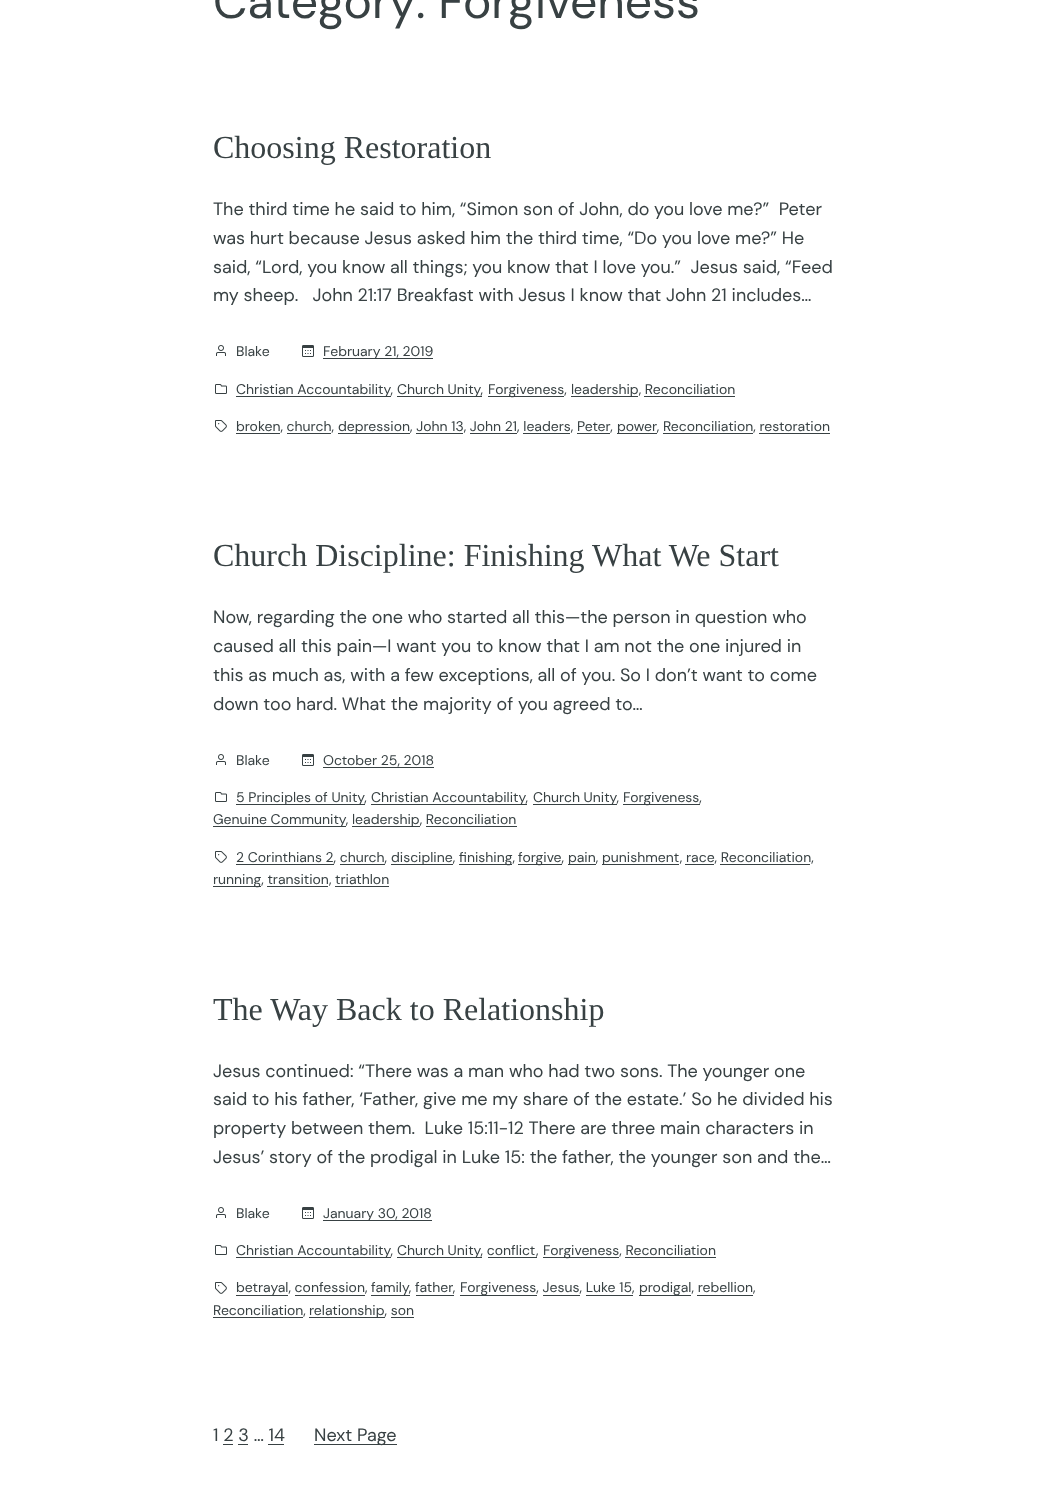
<!DOCTYPE html>
<meta charset="utf-8">
<style>body { margin: 0 } canvas { display: block }</style>
<canvas id="canvas" width="1045" height="1487"></canvas>
<img id="img1" src="img_01.png" hidden>
<img id="img2" src="img_02.png" hidden>
<img id="img3" src="img_03.png" hidden>
<img id="img4" src="img_04.png" hidden>
<script>
window.onload = function () {
	const canvas = document.getElementById("canvas");
	const ctx = canvas.getContext("2d");
	ctx.miterLimit = 4;
	ctx.fontKerning = "normal";
	function txt(s, x, y) {
		ctx.fillText(s, x, y);
	}
	function fill(x, y, w, h) {
		ctx.fillRect(x, y, w, h);
	}
	function img(id, x, y, w, h) {
		ctx.drawImage(document.getElementById(id), x, y, w, h);
	}

	ctx.fillStyle = "#FFFFFF";
	fill(0, 0, 1045, 1487);
	img("img1", 216, 345, 10, 11);
	img("img2", 302, 345, 12, 12);
	ctx.fillStyle = "#384143";
	fill(323, 358, 110, 1);
	img("img3", 215, 384, 12, 10);
	fill(236, 396, 155, 1);
	fill(397, 396, 85, 1);
	fill(488, 396, 76, 1);
	fill(571, 396, 67, 1);
	fill(644, 396, 91, 1);
	img("img4", 215, 420, 12, 12);
	fill(236, 433, 44, 1);
	fill(338, 433, 72, 1);
	fill(617, 433, 40, 1);
	fill(287, 433, 44, 1);
	fill(416, 433, 47, 1);
	fill(470, 433, 47, 1);
	fill(523, 433, 47, 1);
	fill(577, 433, 33, 1);
	fill(663, 433, 90, 1);
	fill(759, 433, 71, 1);
	img("img1", 216, 754, 10, 11);
	img("img2", 302, 754, 12, 12);
	fill(323, 767, 111, 1);
	img("img3", 215, 792, 12, 10);
	fill(236, 804, 129, 1);
	fill(371, 804, 156, 1);
	fill(533, 804, 84, 1);
	fill(623, 804, 77, 1);
	fill(213, 826, 133, 1);
	fill(352, 826, 68, 1);
	fill(426, 826, 91, 1);
	img("img4", 215, 851, 12, 12);
	fill(236, 864, 98, 1);
	fill(391, 864, 62, 1);
	fill(459, 864, 53, 1);
	fill(518, 864, 44, 1);
	fill(568, 864, 28, 1);
	fill(602, 864, 77, 1);
	fill(340, 864, 45, 1);
	fill(685, 864, 29, 1);
	fill(720, 864, 90, 1);
	fill(213, 886, 48, 1);
	fill(267, 886, 61, 1);
	fill(335, 886, 54, 1);
	img("img1", 216, 1207, 10, 11);
	img("img2", 302, 1207, 12, 12);
	fill(323, 1220, 109, 1);
	img("img3", 215, 1245, 12, 10);
	fill(236, 1257, 155, 1);
	fill(397, 1257, 85, 1);
	fill(543, 1257, 76, 1);
	fill(488, 1257, 49, 1);
	fill(625, 1257, 91, 1);
	img("img4", 215, 1282, 12, 12);
	fill(236, 1295, 52, 1);
	fill(371, 1295, 39, 1);
	fill(460, 1295, 77, 1);
	fill(639, 1295, 52, 1);
	fill(295, 1295, 70, 1);
	fill(416, 1295, 38, 1);
	fill(543, 1295, 37, 1);
	fill(586, 1295, 47, 1);
	fill(697, 1295, 56, 1);
	fill(213, 1317, 90, 1);
	fill(309, 1317, 76, 1);
	fill(391, 1317, 23, 1);
	fill(223, 1444, 10, 1);
	fill(238, 1444, 10, 1);
	fill(268, 1444, 16, 1);
	fill(314, 1444, 83, 1);
	ctx.font = "48px DM Sans";
	txt("Category: Forgiveness", 213, 18);
	ctx.font = "32px Liberation Serif";
	txt("Choosing Restoration", 213, 158);
	ctx.font = "18px DM Sans";
	txt("The third time he said to him, “Simon son of John, do you love me?”  Peter", 213, 215);
	txt("was hurt because Jesus asked him the third time, “Do you love me?” He", 213, 244);
	txt("said, “Lord, you know all things; you know that I love you.”  Jesus said, “Feed", 213, 273);
	txt("my sheep.   John 21:17 Breakfast with Jesus I know that John 21 includes…", 213, 301);
	ctx.font = "14px DM Sans";
	txt("Blake", 236, 356);
	txt("February 21, 2019", 323, 356);
	txt("Christian Accountability,", 236, 394);
	txt("Church Unity,", 397, 394);
	txt("Forgiveness,", 488, 394);
	txt("leadership, Reconciliation", 571, 394);
	txt("broken, church,", 236, 431);
	txt("depression, John 13, John 21, leaders, Peter,", 338, 431);
	txt("power, Reconciliation, restoration", 617, 431);
	ctx.font = "32px Liberation Serif";
	txt("Church Discipline: Finishing What We Start", 213, 566);
	ctx.font = "18px DM Sans";
	txt("Now, regarding the one who started all this—the person in question who", 213, 623);
	txt("caused all this pain—I want you to know that I am not the one injured in", 213, 652);
	txt("this as much as, with a few exceptions, all of you. So I don’t want to come", 213, 681);
	txt("down too hard. What the majority of you agreed to…", 213, 710);
	ctx.font = "14px DM Sans";
	txt("Blake", 236, 765);
	txt("October 25, 2018", 323, 765);
	txt("5 Principles of Unity,", 236, 802);
	txt("Christian Accountability,", 371, 802);
	txt("Church Unity,", 533, 802);
	txt("Forgiveness,", 623, 802);
	txt("Genuine Community,", 213, 824);
	txt("leadership, Reconciliation", 352, 824);
	txt("2 Corinthians 2, church,", 236, 862);
	txt("discipline,", 391, 862);
	txt("finishing,", 459, 862);
	txt("forgive,", 518, 862);
	txt("pain,", 568, 862);
	txt("punishment, race, Reconciliation,", 602, 862);
	txt("running, transition, triathlon", 213, 884);
	ctx.font = "32px Liberation Serif";
	txt("The Way Back to Relationship", 213, 1020);
	ctx.font = "18px DM Sans";
	txt("Jesus continued: “There was a man who had two sons. The younger one", 213, 1077);
	txt("said to his father, ‘Father, give me my share of the estate.’ So he divided his", 213, 1105);
	txt("property between them.  Luke 15:11-12 There are three main characters in", 213, 1134);
	txt("Jesus’ story of the prodigal in Luke 15: the father, the younger son and the…", 213, 1163);
	ctx.font = "14px DM Sans";
	txt("Blake", 236, 1218);
	txt("January 30, 2018", 323, 1218);
	txt("Christian Accountability,", 236, 1255);
	txt("Church Unity, conflict,", 397, 1255);
	txt("Forgiveness, Reconciliation", 543, 1255);
	txt("betrayal, confession,", 236, 1292);
	txt("family, father,", 371, 1292);
	txt("Forgiveness, Jesus, Luke 15,", 460, 1292);
	txt("prodigal, rebellion,", 639, 1292);
	txt("Reconciliation,", 213, 1315);
	txt("relationship, son", 309, 1315);
	ctx.font = "18px DM Sans";
	txt("1 2 3 … 14", 213, 1441);
	txt("Next Page", 314, 1441);
};
</script>
